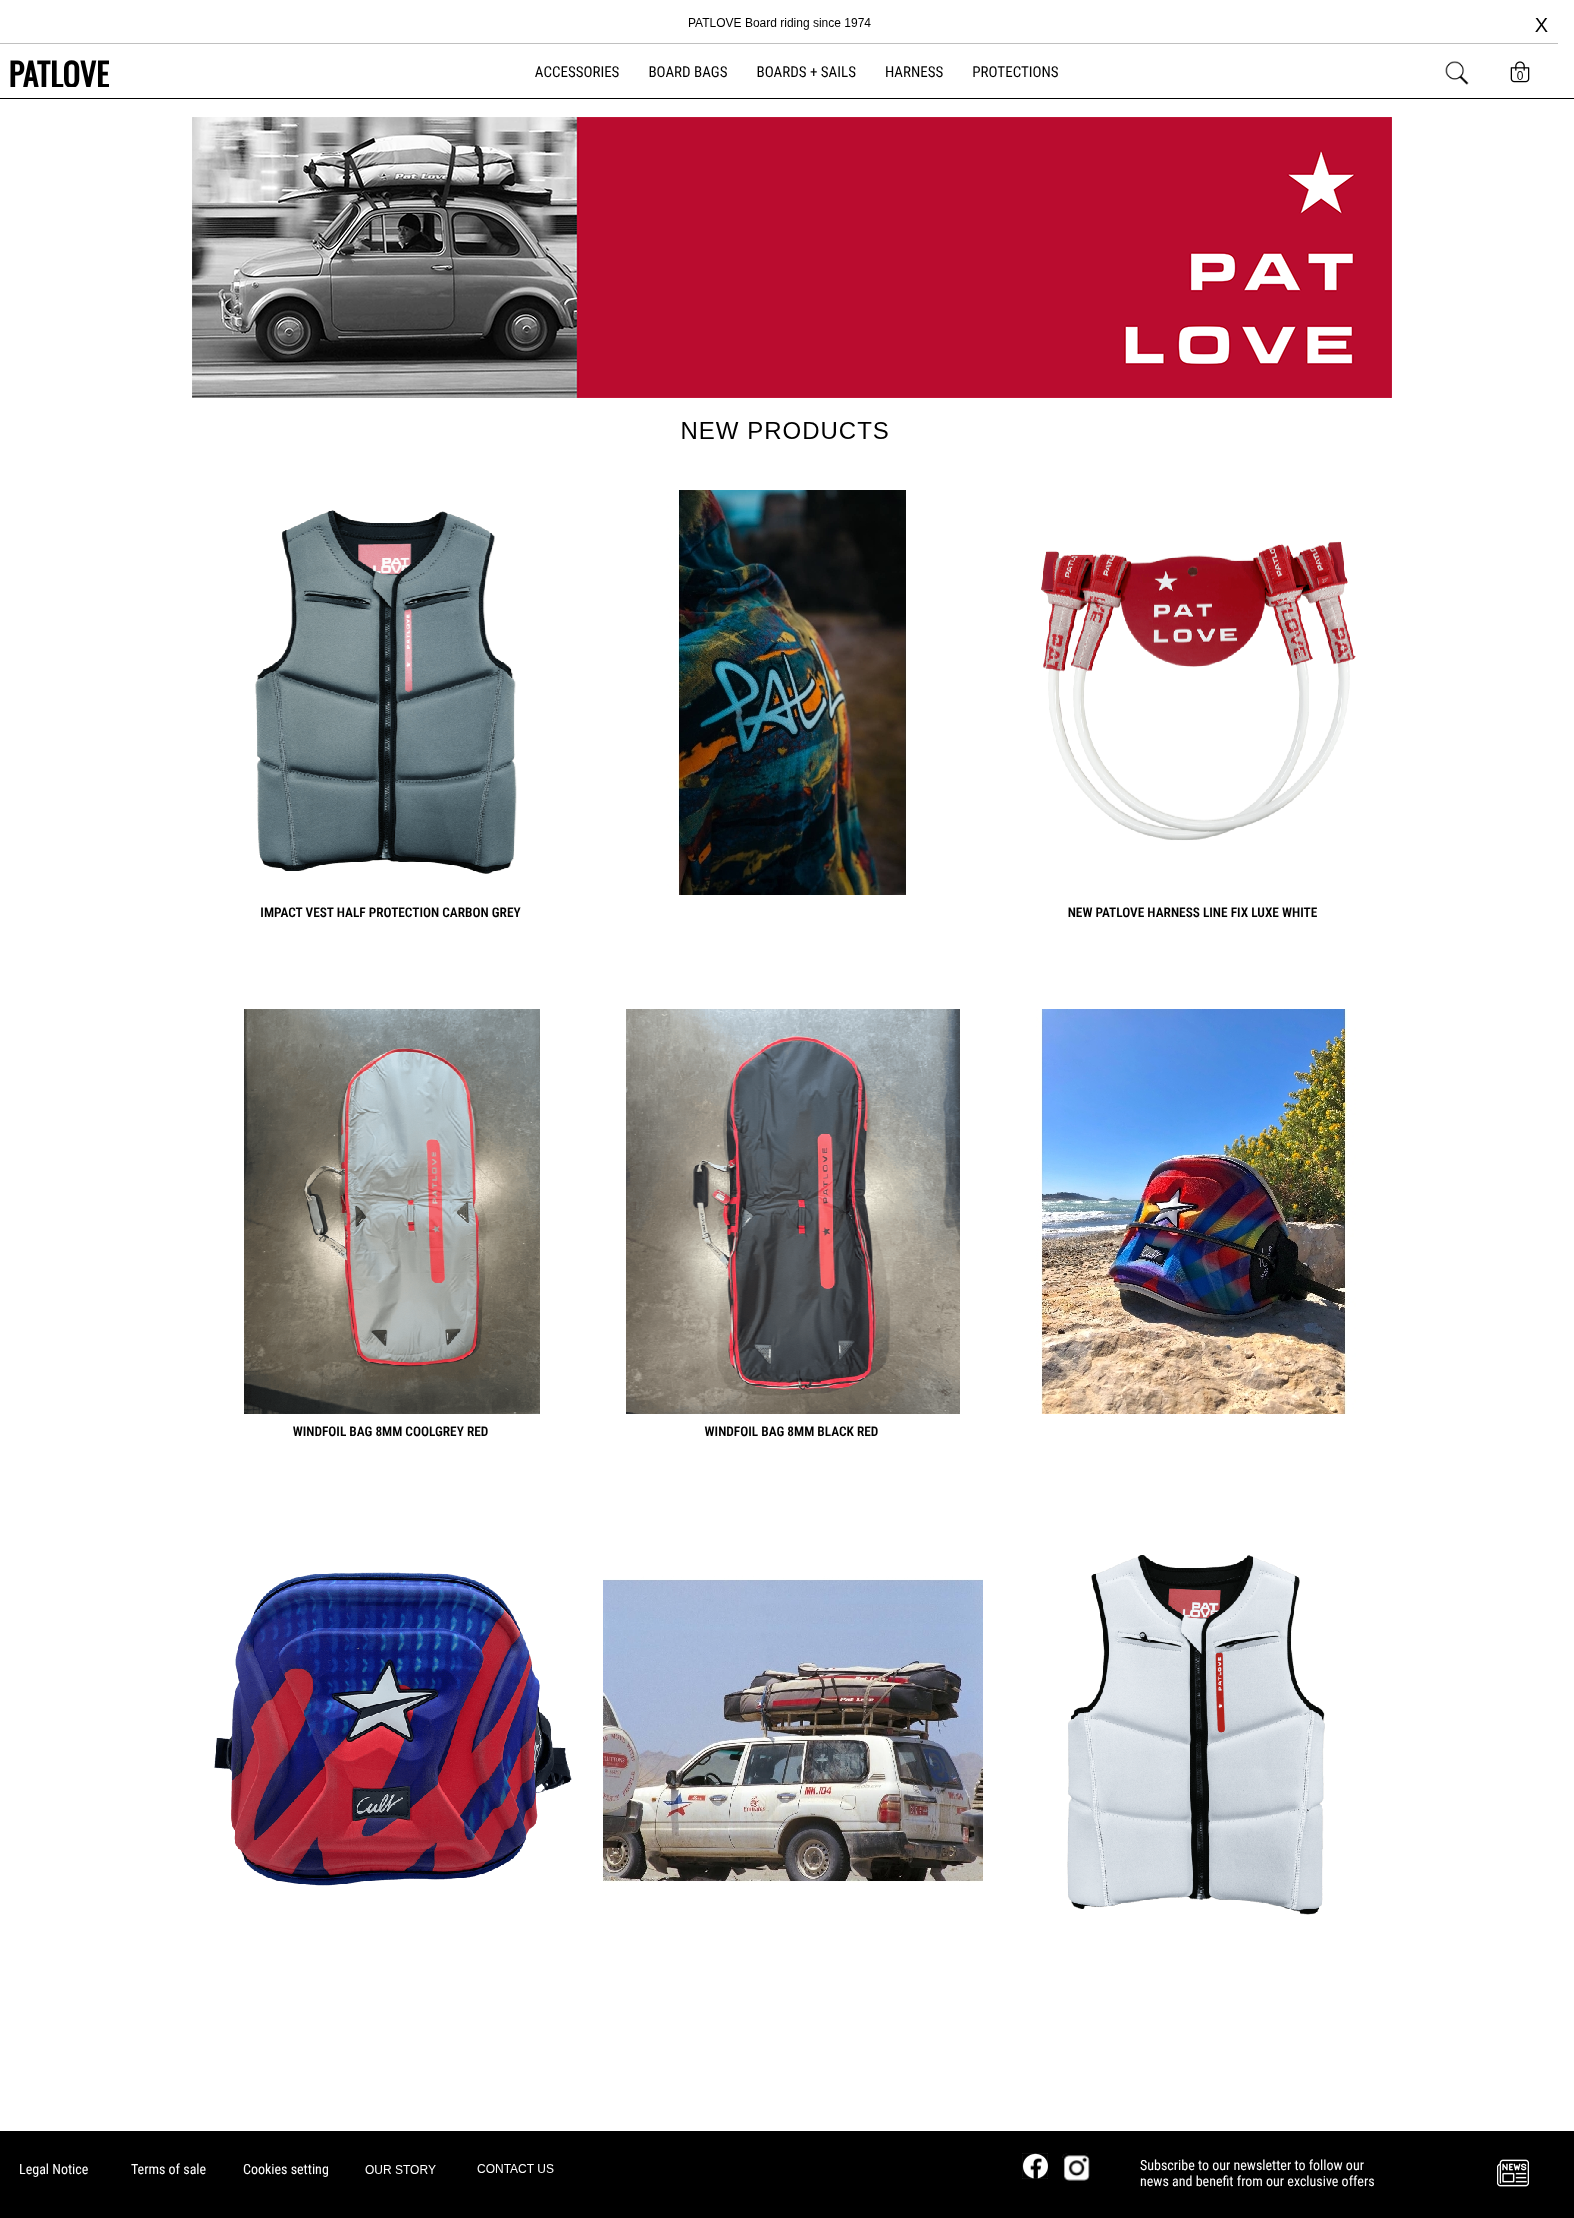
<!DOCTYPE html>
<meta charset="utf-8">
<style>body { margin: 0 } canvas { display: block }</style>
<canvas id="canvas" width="1574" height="2218"></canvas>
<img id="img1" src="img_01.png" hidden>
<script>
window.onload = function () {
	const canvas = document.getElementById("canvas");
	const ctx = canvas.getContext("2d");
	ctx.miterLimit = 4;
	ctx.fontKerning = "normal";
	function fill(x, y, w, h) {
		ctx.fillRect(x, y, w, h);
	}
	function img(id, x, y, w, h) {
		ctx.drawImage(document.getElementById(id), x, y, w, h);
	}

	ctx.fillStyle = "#FFFFFF";
	fill(0, 0, 1574, 2218);
	img("img1", 0, 18, 1574, 2200);
};
</script>
